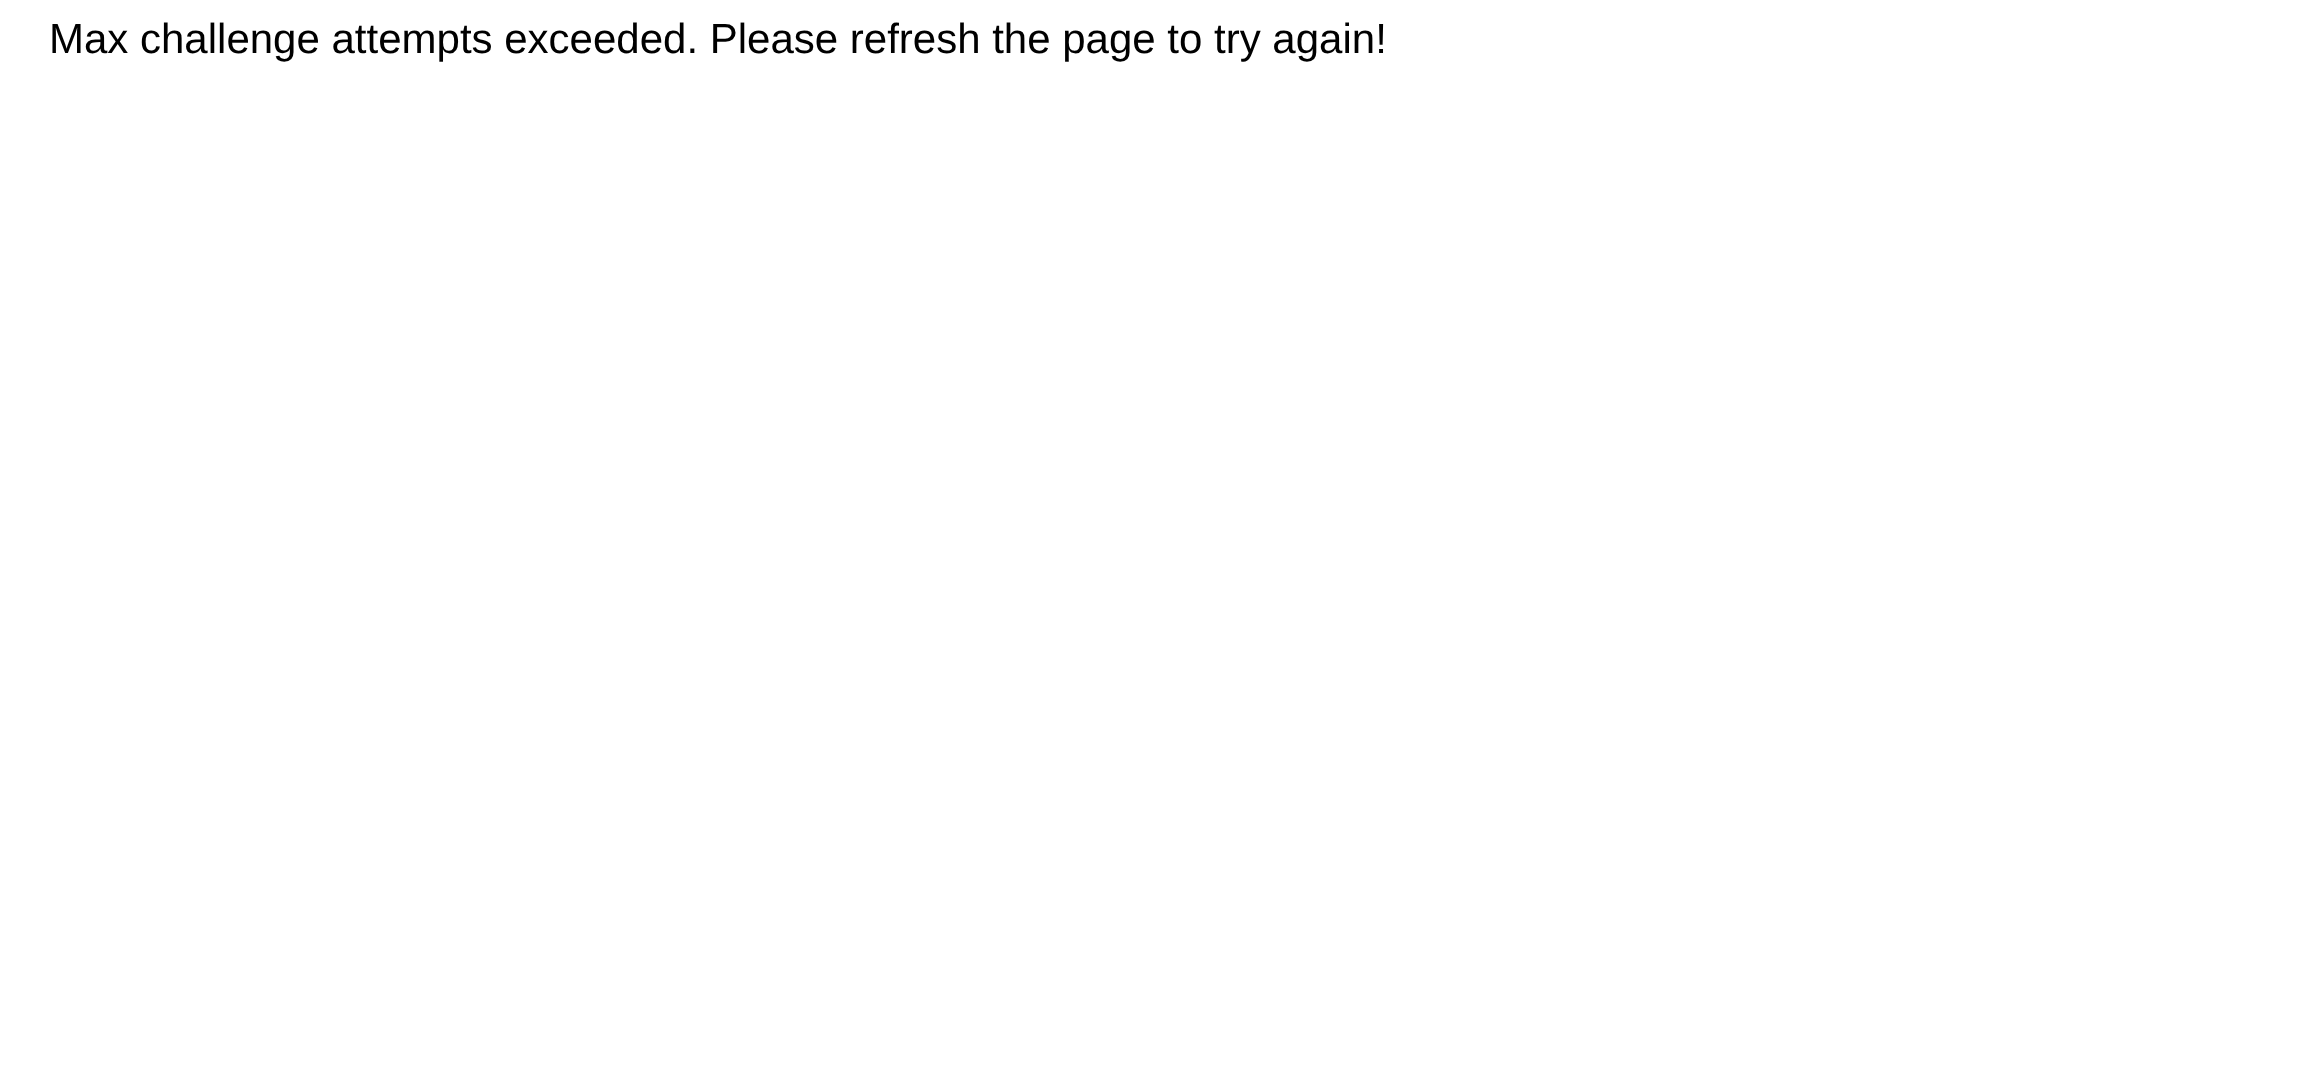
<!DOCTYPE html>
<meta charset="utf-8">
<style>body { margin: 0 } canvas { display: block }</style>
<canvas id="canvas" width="2317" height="1075"></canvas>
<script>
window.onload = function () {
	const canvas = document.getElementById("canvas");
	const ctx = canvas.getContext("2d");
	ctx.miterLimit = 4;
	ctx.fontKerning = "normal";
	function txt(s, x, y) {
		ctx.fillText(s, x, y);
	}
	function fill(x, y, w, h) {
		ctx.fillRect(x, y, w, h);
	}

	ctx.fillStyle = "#FFFFFF";
	fill(0, 0, 2317, 1075);
	ctx.font = "42px Liberation Sans";
	ctx.fillStyle = "#000000";
	txt("Max challenge attempts exceeded. Please refresh the page to try again!", 49, 53);
};
</script>
